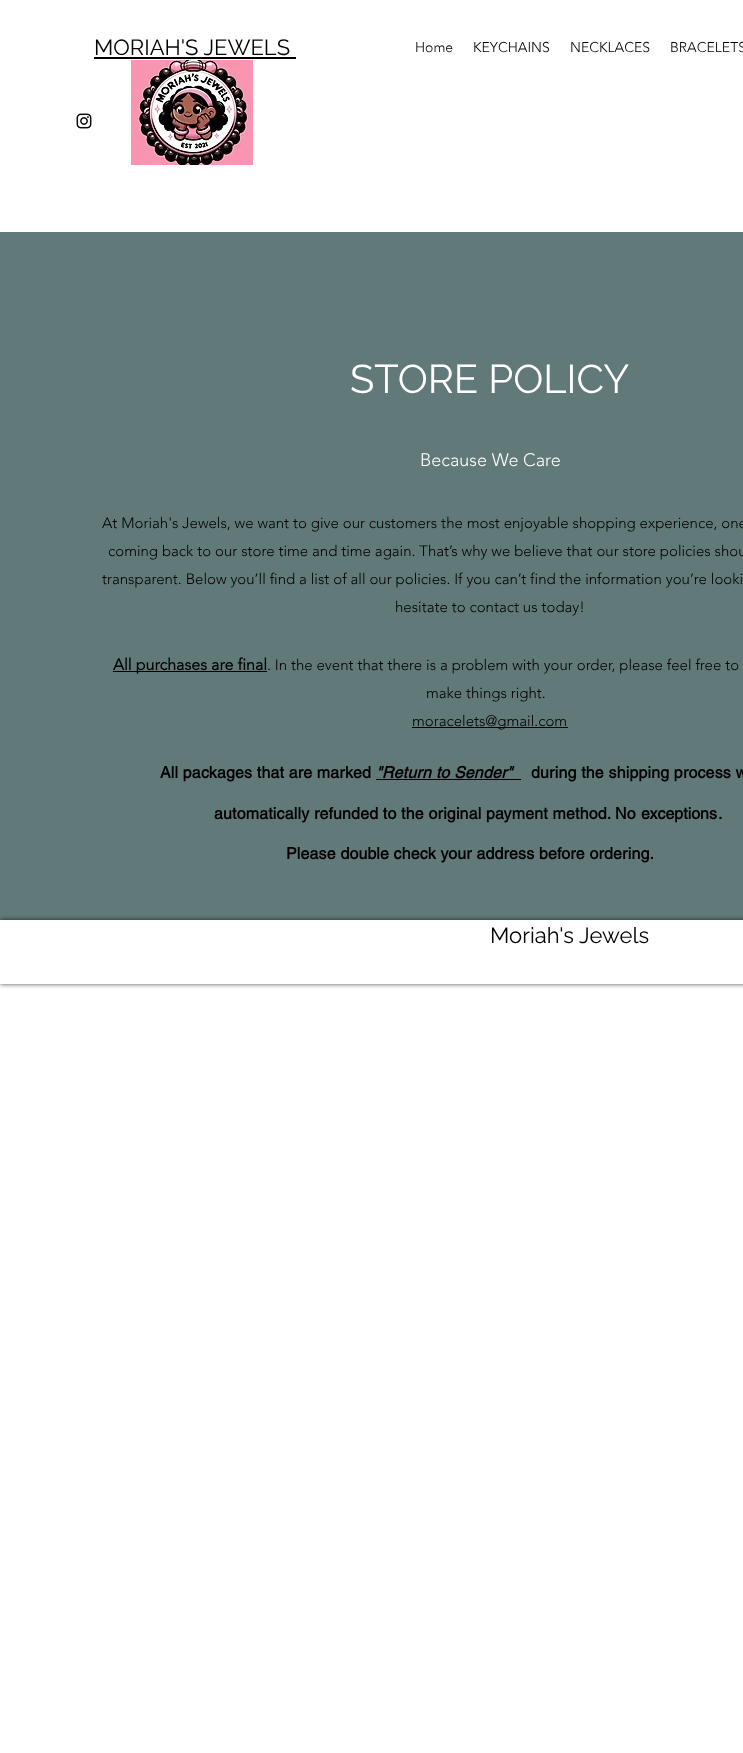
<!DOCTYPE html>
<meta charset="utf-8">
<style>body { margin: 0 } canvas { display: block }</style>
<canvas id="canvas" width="743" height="1753"></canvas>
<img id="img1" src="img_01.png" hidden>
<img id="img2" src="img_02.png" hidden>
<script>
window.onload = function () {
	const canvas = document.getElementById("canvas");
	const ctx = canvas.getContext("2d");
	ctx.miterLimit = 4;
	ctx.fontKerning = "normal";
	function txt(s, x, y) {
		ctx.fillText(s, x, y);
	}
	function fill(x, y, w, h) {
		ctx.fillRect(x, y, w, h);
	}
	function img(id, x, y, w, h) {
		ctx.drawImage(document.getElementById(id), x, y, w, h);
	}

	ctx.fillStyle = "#FFFFFF";
	fill(0, 0, 743, 1753);
	ctx.fillStyle = "#000000";
	fill(94, 57, 202, 2);
	img("img1", 76, 113, 16, 16);
	img("img2", 131, 60, 122, 105);
	ctx.fillStyle = "#617979";
	fill(0, 232, 743, 688);
	ctx.fillStyle = "#000000";
	fill(113, 671, 154, 1);
	fill(412, 727, 156, 1);
	fill(376, 779, 145, 1);
	ctx.save();
	ctx.beginPath();
	ctx.moveTo(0, 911);
	ctx.lineTo(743, 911);
	ctx.lineTo(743, 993);
	ctx.lineTo(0, 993);
	ctx.closePath();
	ctx.moveTo(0, 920);
	ctx.lineTo(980, 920);
	ctx.lineTo(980, 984);
	ctx.lineTo(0, 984);
	ctx.closePath();
	ctx.clip("evenodd");
	ctx.fillStyle = "rgba(0, 0, 0, 0.7)";
	ctx.filter = "blur(2.5px)";
	ctx.beginPath();
	ctx.rect(0, 920, 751, 64);
	ctx.fill();
	ctx.filter = "none";
	ctx.restore();
	ctx.font = "22px Raleway";
	txt("MORIAH'S JEWELS", 94, 55);
	ctx.font = "300 14px 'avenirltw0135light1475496'";
	txt("Home", 415, 52);
	txt("KEYCHAINS", 473, 52);
	txt("NECKLACES", 570, 52);
	txt("BRACELETS", 670, 52);
	ctx.font = "40px Raleway";
	ctx.fillStyle = "#FFFFFF";
	txt("STORE POLICY", 350, 393);
	ctx.font = "300 18px 'avenirltw0135light1475496'";
	txt("Because We Care", 420, 466);
	ctx.font = "300 15px 'avenirltw0135light1475496'";
	ctx.fillStyle = "#000000";
	txt("At Moriah's Jewels, we want to give our customers the most enjoyable shopping experience, one", 102, 528);
	txt("coming back to our store time and time again. That’s why we believe that our store policies shou", 108, 556);
	txt("transparent. Below you’ll find a list of all our policies. If you can’t find the information you’re looki", 102, 584);
	txt("hesitate to contact us today!", 395, 612);
	ctx.font = "bold 16px 'avenirltw0135light1475496'";
	txt("All purchases are final", 113, 670);
	ctx.font = "300 15px 'avenirltw0135light1475496'";
	txt(". In the event that there is a problem with your order, please feel free to", 267, 670);
	txt("make things right.", 426, 698);
	txt("moracelets@gmail.com", 412, 726);
	ctx.letterSpacing = "0.15px";
	ctx.font = "bold 16px helvetica";
	txt("All packages that are marked", 160, 778);
	ctx.font = "italic bold 16px helvetica";
	txt("\"Return to Sender\"", 376, 778);
	ctx.font = "bold 16px helvetica";
	txt("during the shipping process w", 531, 778);
	txt("automatically refunded to the original payment method. No", 214, 819);
	ctx.letterSpacing = "0px";
	txt("exceptions", 641, 819);
	ctx.letterSpacing = "0.15px";
	txt(".", 718, 819);
	txt("Please double check your address before ordering.", 286, 859);
	ctx.letterSpacing = "0px";
	ctx.font = "22px Raleway";
	txt("Moriah's Jewels", 490, 943);
};
</script>
